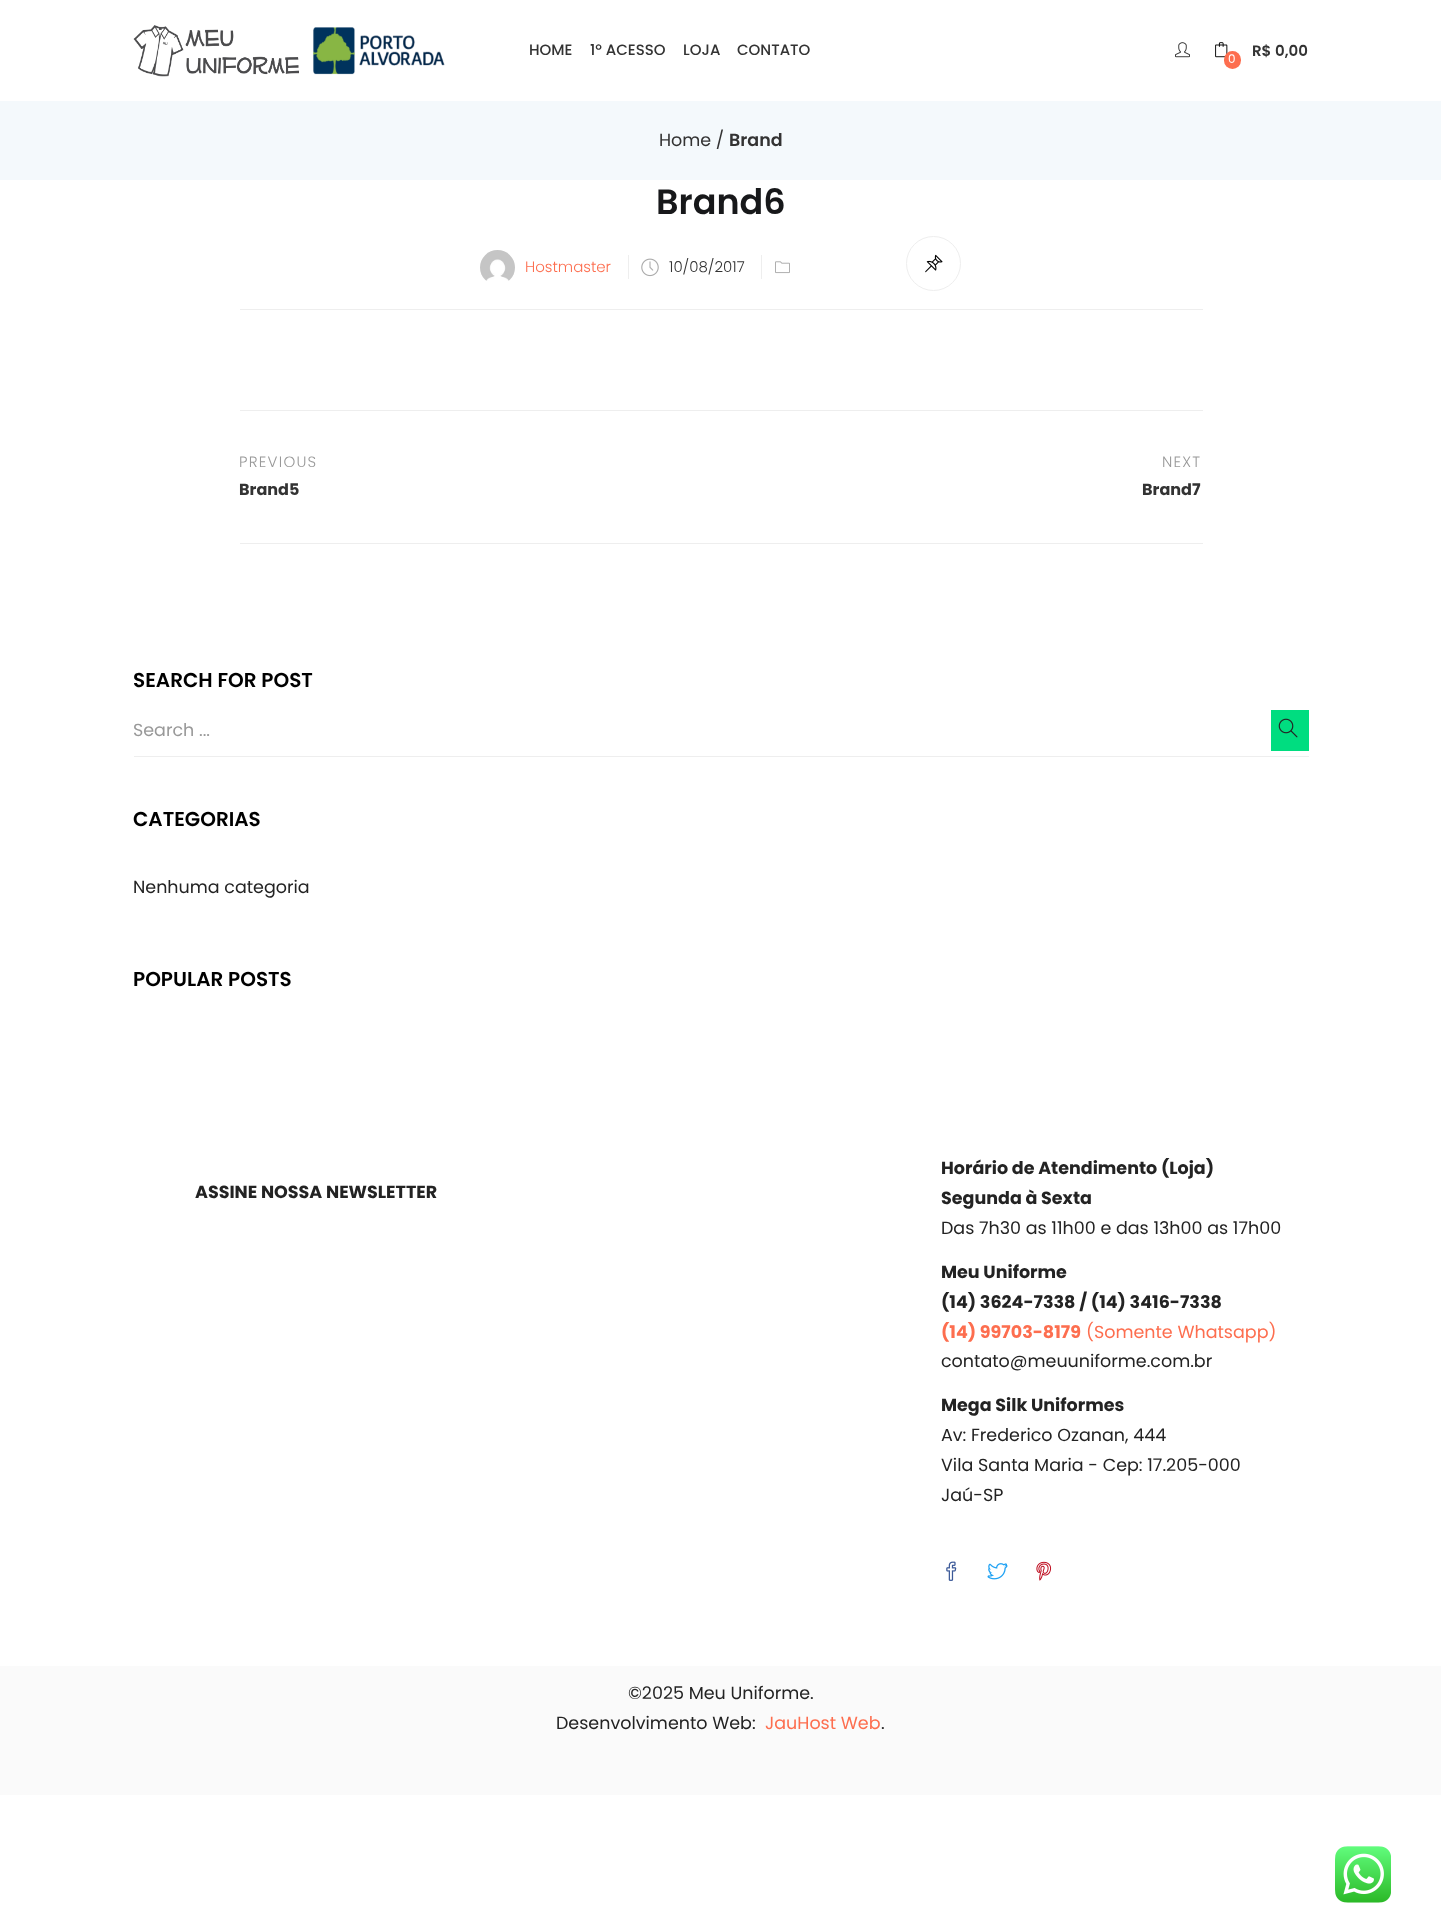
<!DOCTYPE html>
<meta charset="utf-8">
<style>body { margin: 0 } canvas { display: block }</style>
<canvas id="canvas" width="1441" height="1914"></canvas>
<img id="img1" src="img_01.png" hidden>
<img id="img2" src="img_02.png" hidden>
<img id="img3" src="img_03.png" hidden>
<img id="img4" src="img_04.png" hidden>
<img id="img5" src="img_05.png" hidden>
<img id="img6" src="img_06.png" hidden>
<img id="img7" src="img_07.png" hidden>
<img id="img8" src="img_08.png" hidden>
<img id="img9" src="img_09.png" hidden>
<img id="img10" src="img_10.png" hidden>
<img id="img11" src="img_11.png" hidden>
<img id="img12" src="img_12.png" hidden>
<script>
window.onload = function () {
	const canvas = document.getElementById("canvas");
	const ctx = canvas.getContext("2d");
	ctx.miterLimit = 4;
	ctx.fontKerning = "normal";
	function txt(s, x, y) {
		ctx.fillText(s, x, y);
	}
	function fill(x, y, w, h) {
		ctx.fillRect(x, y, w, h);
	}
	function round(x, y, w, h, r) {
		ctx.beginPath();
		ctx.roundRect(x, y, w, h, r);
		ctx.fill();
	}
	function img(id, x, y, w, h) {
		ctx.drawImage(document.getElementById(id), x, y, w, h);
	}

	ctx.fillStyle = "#FFFFFF";
	fill(0, 0, 1441, 1914);
	img("img1", 133, 25, 312, 52);
	img("img2", 1175, 42, 15, 16);
	img("img3", 1215, 42, 13, 16);
	ctx.fillStyle = "#FD6E4F";
	round(1224, 51, 17, 18, 8.5);
	ctx.fillStyle = "#F4F9FC";
	fill(0, 101, 1441, 79);
	ctx.fillStyle = "#EEEEEE";
	fill(240, 309, 963, 1);
	img("img4", 480, 250, 35, 31);
	fill(628, 255, 1, 24);
	img("img5", 641, 258, 18, 19);
	fill(761, 255, 1, 24);
	img("img6", 775, 261, 15, 13);
	ctx.beginPath();
	ctx.arc(933.5, 263.5, 27, 0, Math.PI * 2);
	ctx.strokeStyle = "#EEEEEE";
	ctx.stroke();
	img("img7", 925, 254, 18, 19);
	fill(240, 410, 963, 1);
	fill(240, 543, 963, 1);
	fill(134, 756, 1175, 1);
	ctx.fillStyle = "#00DD80";
	fill(1271, 710, 38, 41);
	img("img8", 1278, 718, 20, 20);
	img("img9", 946, 1561, 11, 20);
	img("img10", 987, 1563, 21, 17);
	img("img11", 1036, 1561, 16, 20);
	ctx.fillStyle = "#FAFAFA";
	fill(0, 1666, 1441, 129);
	img("img12", 1335, 1846, 56, 57);
	ctx.font = "500 15px Poppins";
	ctx.fillStyle = "#333333";
	txt("HOME", 529, 55);
	txt("1º ACESSO", 590, 55);
	txt("LOJA", 683, 55);
	txt("CONTATO", 737, 55);
	ctx.font = "12px Poppins";
	ctx.fillStyle = "#FFFFFF";
	txt("0", 1228, 63);
	ctx.font = "600 15px Poppins";
	ctx.fillStyle = "#333333";
	txt("R$ 0,00", 1252, 56);
	ctx.font = "17.5px Poppins";
	txt("Home /", 659, 146);
	ctx.font = "600 17.5px Poppins";
	txt("Brand", 729, 146);
	ctx.font = "600 35px Poppins";
	ctx.fillStyle = "#17181A";
	txt("Brand6", 656, 214);
	ctx.font = "300 15px Poppins";
	ctx.fillStyle = "#FD6E4F";
	txt("Hostmaster", 525, 272);
	ctx.fillStyle = "#333333";
	txt("10/08/2017", 669, 272);
	ctx.letterSpacing = "1.25px";
	ctx.fillStyle = "#999999";
	txt("PREVIOUS", 239, 467);
	ctx.letterSpacing = "0px";
	ctx.font = "bold 16px Poppins";
	ctx.fillStyle = "#333333";
	txt("Brand5", 239, 495);
	ctx.letterSpacing = "1.25px";
	ctx.font = "300 15px Poppins";
	ctx.fillStyle = "#999999";
	txt("NEXT", 1162, 467);
	ctx.letterSpacing = "0px";
	ctx.font = "bold 16px Poppins";
	ctx.fillStyle = "#333333";
	txt("Brand7", 1142, 495);
	ctx.font = "600 20px Poppins";
	ctx.fillStyle = "#000000";
	txt("SEARCH FOR POST", 133, 687);
	ctx.font = "17.5px Poppins";
	ctx.fillStyle = "#999999";
	txt("Search ...", 133, 736);
	ctx.font = "600 20px Poppins";
	ctx.fillStyle = "#000000";
	txt("CATEGORIAS", 133, 826);
	ctx.font = "17.5px Poppins";
	ctx.fillStyle = "#232323";
	txt("Nenhuma categoria", 133, 893);
	ctx.font = "600 20px Poppins";
	ctx.fillStyle = "#000000";
	txt("POPULAR POSTS", 133, 986);
	ctx.font = "bold 17.5px Poppins";
	ctx.fillStyle = "#232323";
	txt("ASSINE NOSSA NEWSLETTER", 195, 1198);
	txt("Horário de Atendimento (Loja)", 941, 1174);
	txt("Segunda à Sexta", 941, 1204);
	ctx.font = "17.5px Poppins";
	txt("Das 7h30 as 11h00 e das 13h00 as 17h00", 941, 1234);
	ctx.font = "bold 17.5px Poppins";
	txt("Meu Uniforme", 941, 1278);
	txt("(14) 3624-7338 / (14) 3416-7338", 941, 1308);
	ctx.fillStyle = "#FD6E4F";
	txt("(14) 99703-8179", 941, 1338);
	ctx.font = "17.5px Poppins";
	txt("(Somente Whatsapp)", 1086, 1338);
	ctx.fillStyle = "#232323";
	txt("contato@meuuniforme.com.br", 941, 1367);
	ctx.font = "bold 17.5px Poppins";
	txt("Mega Silk Uniformes", 941, 1411);
	ctx.font = "17.5px Poppins";
	txt("Av: Frederico Ozanan, 444", 941, 1441);
	txt("Vila Santa Maria - Cep: 17.205-000", 941, 1471);
	txt("Jaú-SP", 941, 1501);
	txt("©2025 Meu Uniforme.", 628, 1699);
	txt("Desenvolvimento Web:", 556, 1729);
	ctx.fillStyle = "#FD6E4F";
	txt("JauHost Web", 765, 1729);
	ctx.fillStyle = "#232323";
	txt(".", 881, 1729);
};
</script>
